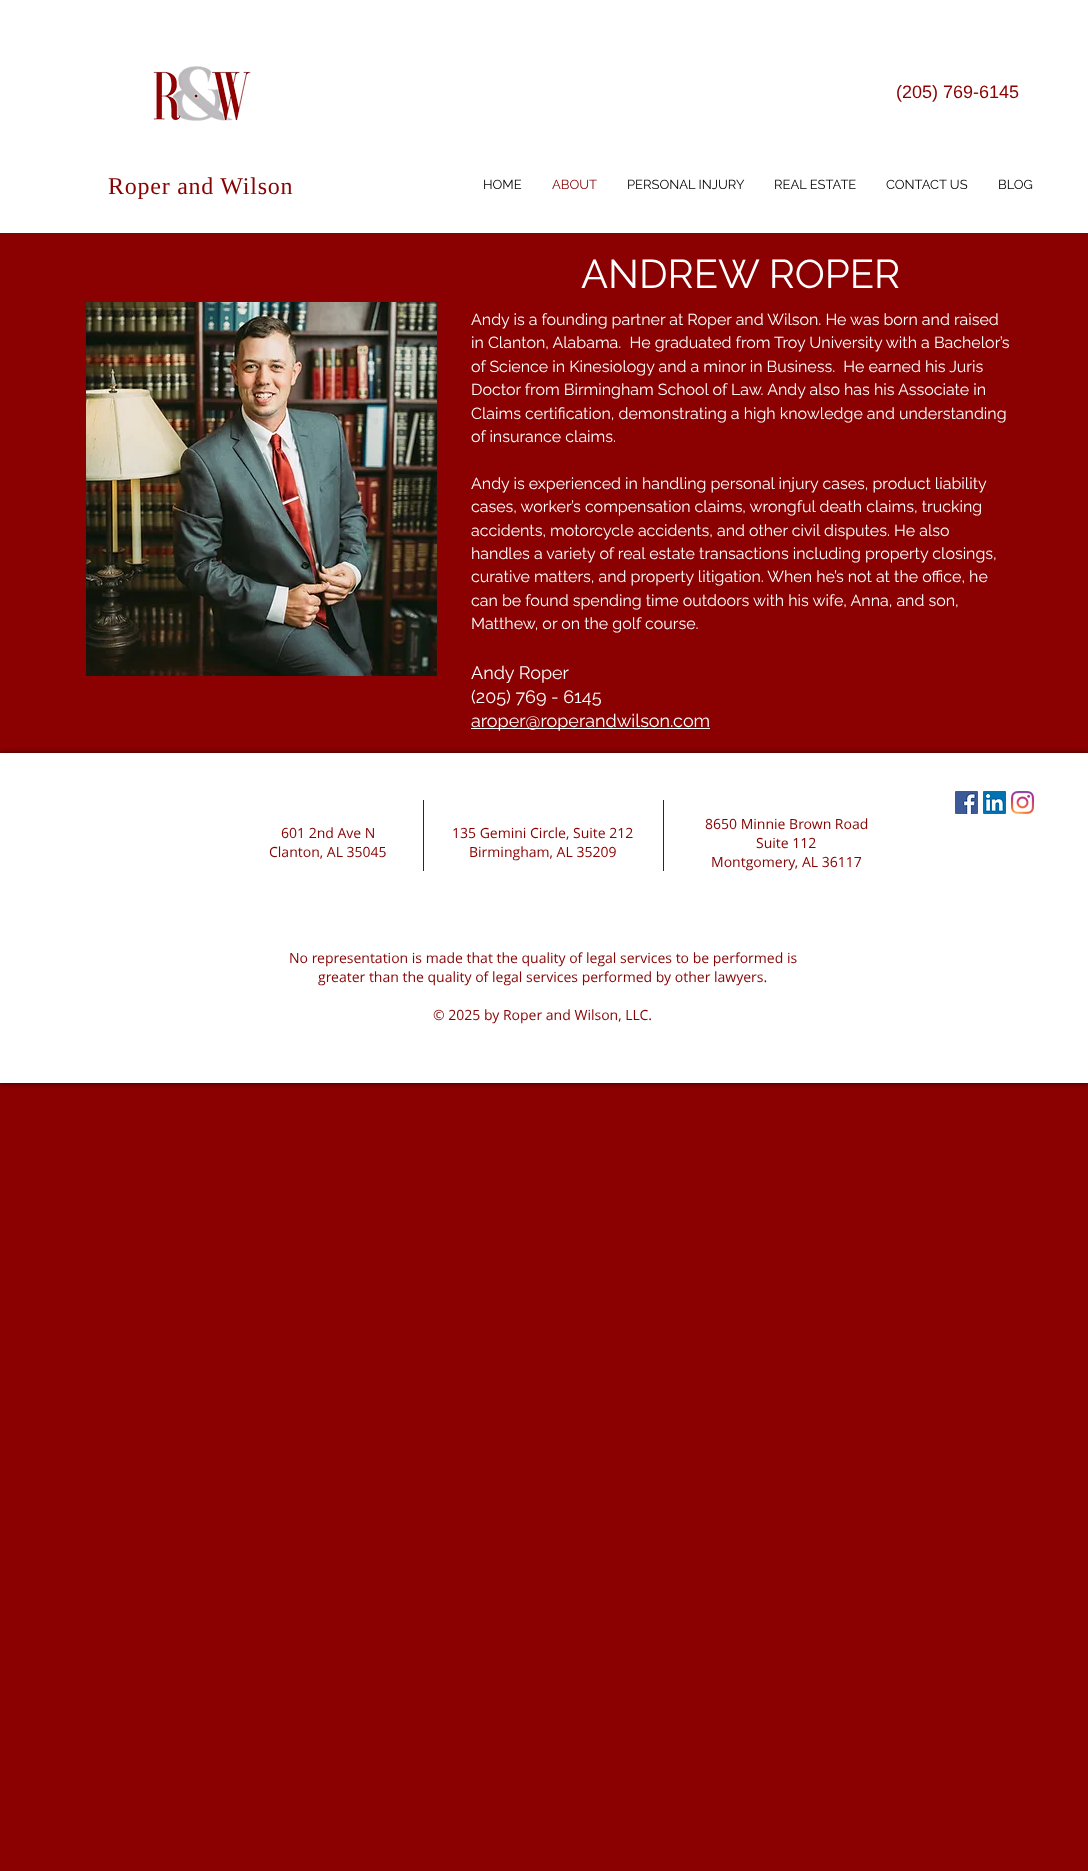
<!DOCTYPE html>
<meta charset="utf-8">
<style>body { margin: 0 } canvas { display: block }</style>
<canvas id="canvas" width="1088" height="1871"></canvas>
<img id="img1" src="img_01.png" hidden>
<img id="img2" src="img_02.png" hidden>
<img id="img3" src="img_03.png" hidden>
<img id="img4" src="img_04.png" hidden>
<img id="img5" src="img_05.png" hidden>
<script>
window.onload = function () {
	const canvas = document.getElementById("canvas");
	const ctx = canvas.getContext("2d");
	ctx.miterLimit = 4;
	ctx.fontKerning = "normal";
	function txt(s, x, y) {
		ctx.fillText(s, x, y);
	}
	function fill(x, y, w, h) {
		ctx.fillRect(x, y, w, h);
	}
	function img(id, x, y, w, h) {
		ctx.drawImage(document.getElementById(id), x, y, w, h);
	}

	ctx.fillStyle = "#8B0000";
	fill(0, 0, 1088, 1871);
	ctx.fillStyle = "#FFFFFF";
	fill(0, 0, 1088, 233);
	img("img1", 153, 66, 98, 55);
	img("img2", 86, 302, 351, 374);
	fill(471, 728, 239, 1);
	ctx.fillStyle = "rgba(0, 0, 0, 0.7)";
	ctx.filter = "blur(2.5px)";
	ctx.beginPath();
	ctx.rect(0, 753, 1088, 330);
	ctx.fill();
	ctx.filter = "none";
	ctx.fillStyle = "#FFFFFF";
	fill(0, 753, 1088, 330);
	ctx.fillStyle = "#282626";
	fill(423, 800, 1, 71);
	fill(663, 800, 1, 71);
	img("img3", 955, 791, 23, 23);
	img("img4", 983, 791, 23, 23);
	img("img5", 1011, 791, 23, 23);
	ctx.font = "18px Liberation Sans";
	ctx.fillStyle = "#8B0000";
	txt("(205) 769-6145", 896, 98);
	ctx.letterSpacing = "0.75px";
	ctx.font = "24px Liberation Serif";
	ctx.fillStyle = "#850303";
	txt("Roper and Wilson", 108, 194);
	ctx.letterSpacing = "0px";
	ctx.font = "13px Raleway";
	ctx.fillStyle = "#000000";
	txt("HOME", 483, 189);
	ctx.fillStyle = "#850303";
	txt("ABOUT", 552, 189);
	ctx.fillStyle = "#000000";
	txt("PERSONAL INJURY", 627, 189);
	txt("REAL ESTATE", 774, 189);
	txt("CONTACT US", 886, 189);
	txt("BLOG", 998, 189);
	ctx.font = "40px Raleway";
	ctx.fillStyle = "#FFFFFF";
	txt("ANDREW ROPER", 581, 288);
	ctx.font = "16px Raleway";
	txt("Andy is a founding partner at Roper and Wilson. He was born and raised", 471, 325);
	txt("in Clanton, Alabama.  He graduated from Troy University with a Bachelor’s", 471, 348);
	txt("of Science in Kinesiology and a minor in Business.  He earned his Juris", 471, 372);
	txt("Doctor from Birmingham School of Law. Andy also has his Associate in", 471, 395);
	txt("Claims certification, demonstrating a high knowledge and understanding", 471, 419);
	txt("of insurance claims.", 471, 442);
	txt("Andy is experienced in handling personal injury cases, product liability", 471, 489);
	txt("cases, worker’s compensation claims, wrongful death claims, trucking", 471, 512);
	txt("accidents, motorcycle accidents, and other civil disputes. He also", 471, 536);
	txt("handles a variety of real estate transactions including property closings,", 471, 559);
	txt("curative matters, and property litigation. When he’s not at the office, he", 471, 582);
	txt("can be found spending time outdoors with his wife, Anna, and son,", 471, 606);
	txt("Matthew, or on the golf course.", 471, 629);
	ctx.font = "18px Raleway";
	txt("Andy Roper", 471, 679);
	txt("(205) 769 - 6145", 471, 703);
	txt("aroper@roperandwilson.com", 471, 727);
	ctx.font = "14px Open Sans";
	ctx.fillStyle = "#850303";
	txt("601 2nd Ave N", 281, 838);
	txt("Clanton, AL 35045", 269, 857);
	ctx.fillStyle = "#8B0000";
	txt("135 Gemini Circle, Suite 212", 452, 838);
	txt("Birmingham, AL 35209", 469, 857);
	ctx.fillStyle = "#850303";
	txt("8650 Minnie Brown Road", 705, 829);
	txt("Suite 112", 756, 848);
	txt("Montgomery, AL 36117", 711, 867);
	txt("No representation is made that the quality of legal services to be performed is", 289, 963);
	txt("greater than the quality of legal services performed by other lawyers.", 318, 982);
	txt("© 2025 by Roper and Wilson, LLC.", 433, 1020);
};
</script>
